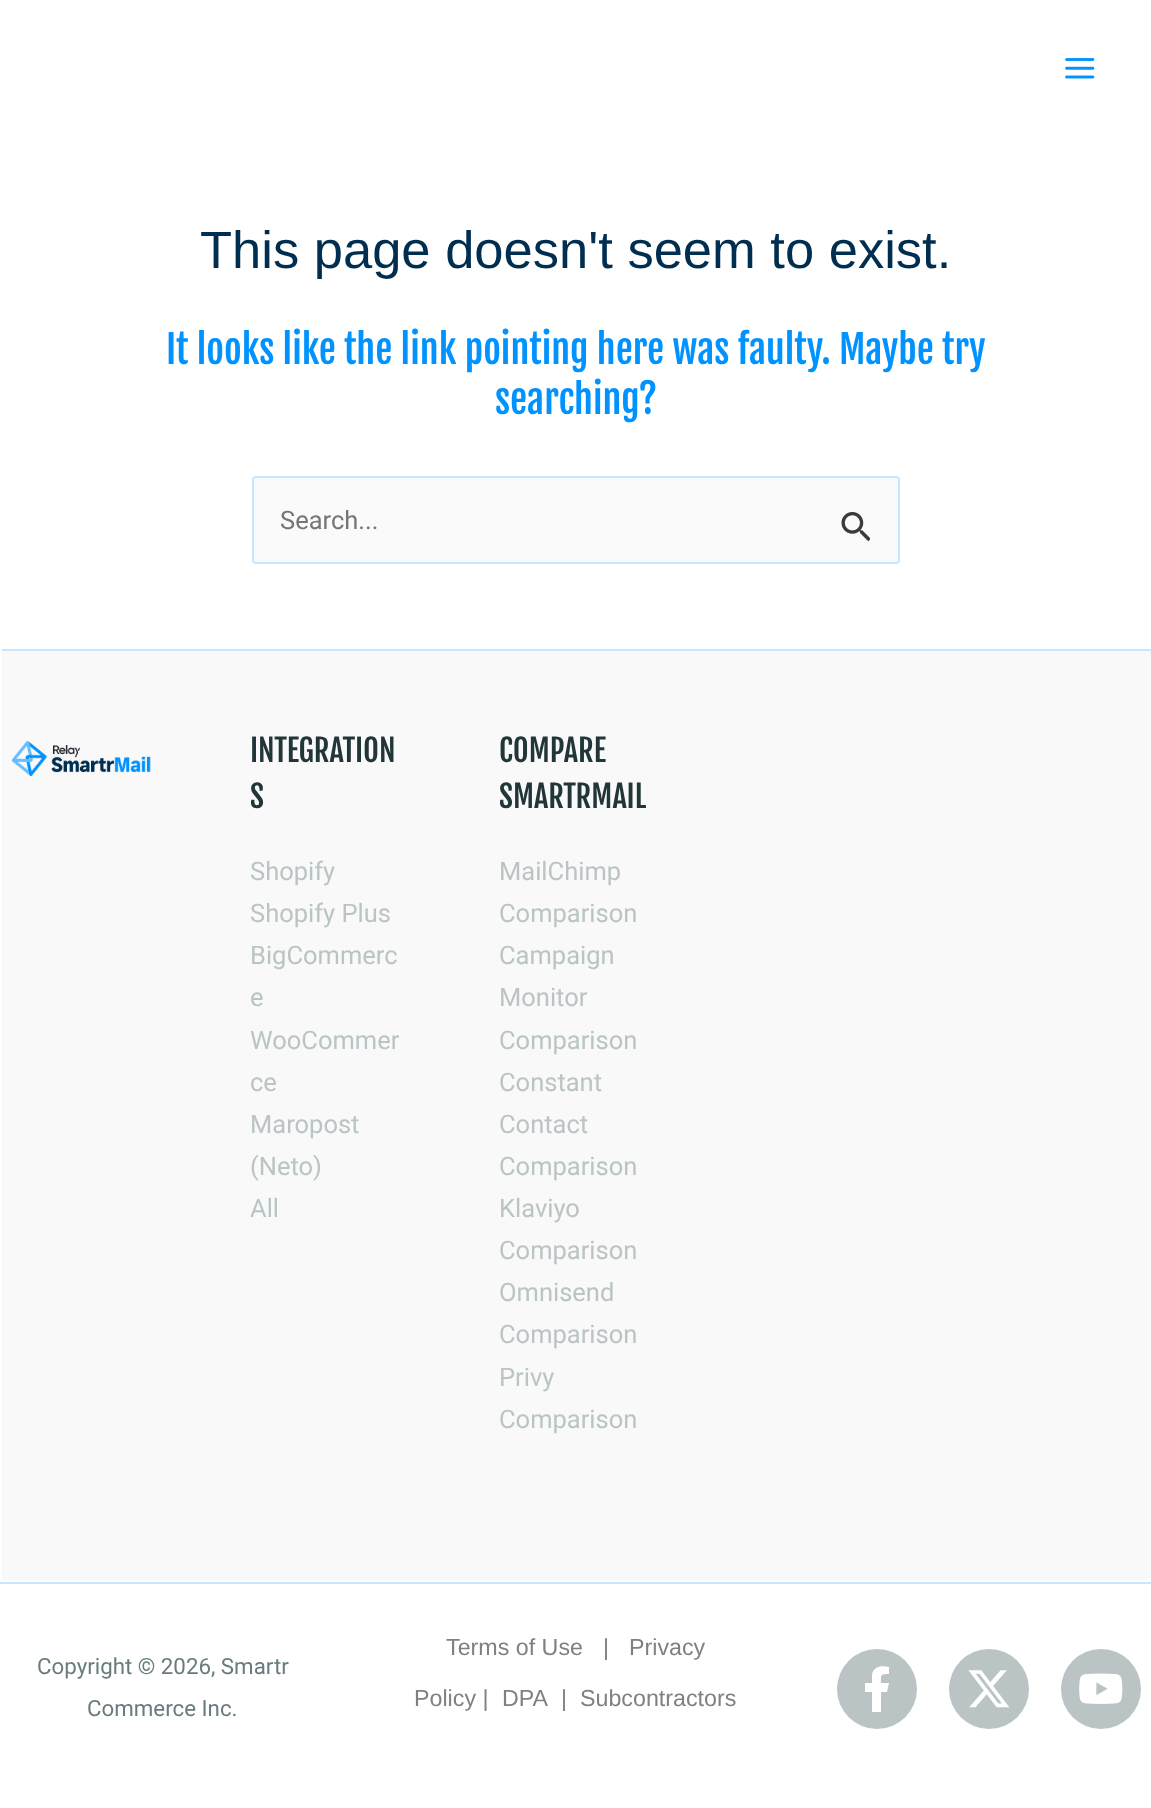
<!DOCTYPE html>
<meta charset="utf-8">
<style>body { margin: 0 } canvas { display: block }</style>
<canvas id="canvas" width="1151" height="1808"></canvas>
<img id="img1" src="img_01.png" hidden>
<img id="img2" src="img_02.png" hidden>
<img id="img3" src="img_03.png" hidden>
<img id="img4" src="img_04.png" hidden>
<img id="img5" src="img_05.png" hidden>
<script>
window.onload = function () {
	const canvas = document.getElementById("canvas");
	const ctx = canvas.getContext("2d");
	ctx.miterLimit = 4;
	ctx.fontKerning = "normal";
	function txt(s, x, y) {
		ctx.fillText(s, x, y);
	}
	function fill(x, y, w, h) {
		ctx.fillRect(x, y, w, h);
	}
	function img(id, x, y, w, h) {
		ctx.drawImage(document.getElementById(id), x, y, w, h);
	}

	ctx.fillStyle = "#FFFFFF";
	fill(0, 0, 1151, 1808);
	img("img1", 1065, 58, 30, 21);
	ctx.fillStyle = "#FAFAFA";
	ctx.beginPath();
	ctx.roundRect(253, 477, 646, 86, 3);
	ctx.fill();
	ctx.strokeStyle = "#C7E7FF";
	ctx.lineWidth = 2;
	ctx.stroke();
	img("img2", 841, 512, 29, 30);
	ctx.fillStyle = "#F9F9F9";
	fill(2, 651, 1149, 929);
	ctx.fillStyle = "#C7E7FF";
	fill(2, 649, 1149, 2);
	img("img3", 11, 740, 140, 37);
	fill(0, 1582, 1151, 2);
	ctx.fillStyle = "#BAC4C5";
	ctx.beginPath();
	ctx.arc(877, 1689, 40, 0, Math.PI * 2);
	ctx.fill();
	ctx.fillStyle = "#FFFFFF";
	ctx.beginPath();
	ctx.moveTo(887, 1692);
	ctx.lineTo(889, 1683);
	ctx.lineTo(881, 1683);
	ctx.bezierCurveTo(881, 1675, 880, 1674, 889, 1674);
	ctx.lineTo(889, 1667);
	ctx.bezierCurveTo(882, 1665, 873, 1666, 872, 1675);
	ctx.lineTo(872, 1683);
	ctx.lineTo(865, 1683);
	ctx.lineTo(865, 1692);
	ctx.lineTo(872, 1692);
	ctx.lineTo(872, 1712);
	ctx.lineTo(881, 1712);
	ctx.lineTo(881, 1692);
	ctx.closePath();
	ctx.fill();
	ctx.fillStyle = "#BAC4C5";
	ctx.beginPath();
	ctx.arc(989, 1689, 40, 0, Math.PI * 2);
	ctx.fill();
	img("img4", 968, 1670, 41, 38);
	ctx.beginPath();
	ctx.arc(1101, 1689, 40, 0, Math.PI * 2);
	ctx.fill();
	img("img5", 1079, 1673, 44, 31);
	ctx.font = "52.5px Liberation Sans";
	ctx.fillStyle = "#002E50";
	txt("This page doesn't seem to exist.", 200, 268);
	ctx.font = "38.3px Fjalla One";
	ctx.fillStyle = "#0093FF";
	txt("It looks like the link pointing here was faulty. Maybe try", 166, 364);
	txt("searching?", 495, 414);
	ctx.font = "25.5px Roboto";
	ctx.fillStyle = "#757575";
	txt("Search...", 280, 529);
	ctx.font = "30.5px Fjalla One";
	ctx.fillStyle = "#223639";
	txt("INTEGRATION", 250, 762);
	txt("S", 250, 808);
	ctx.font = "25.5px Roboto";
	ctx.fillStyle = "#BAC4C5";
	txt("Shopify", 250, 880);
	txt("Shopify Plus", 250, 922);
	txt("BigCommerc", 250, 964);
	txt("e", 250, 1006);
	txt("WooCommer", 250, 1049);
	txt("ce", 250, 1091);
	txt("Maropost", 250, 1133);
	txt("(Neto)", 250, 1175);
	txt("All", 250, 1217);
	ctx.font = "30.5px Fjalla One";
	ctx.fillStyle = "#223639";
	txt("COMPARE", 499, 762);
	txt("SMARTRMAIL", 499, 808);
	ctx.font = "25.5px Roboto";
	ctx.fillStyle = "#BAC4C5";
	txt("MailChimp", 499, 880);
	txt("Comparison", 499, 922);
	txt("Campaign", 499, 964);
	txt("Monitor", 499, 1006);
	txt("Comparison", 499, 1049);
	txt("Constant", 499, 1091);
	txt("Contact", 499, 1133);
	txt("Comparison", 499, 1175);
	txt("Klaviyo", 499, 1217);
	txt("Comparison", 499, 1259);
	txt("Omnisend", 499, 1301);
	txt("Comparison", 499, 1343);
	txt("Privy", 499, 1386);
	txt("Comparison", 499, 1428);
	ctx.font = "22.3px Roboto";
	ctx.fillStyle = "#697B7E";
	txt("Copyright © 2026, Smartr", 37, 1674);
	txt("Commerce Inc.", 87, 1716);
	ctx.font = "23.25px Liberation Sans";
	ctx.fillStyle = "#808080";
	txt("Terms of Use", 446, 1655);
	txt("|", 603, 1655);
	txt("Privacy", 629, 1655);
	txt("Policy |", 414, 1706);
	txt("DPA", 502, 1706);
	txt("|", 561, 1706);
	txt("Subcontractors", 580, 1706);
};
</script>
